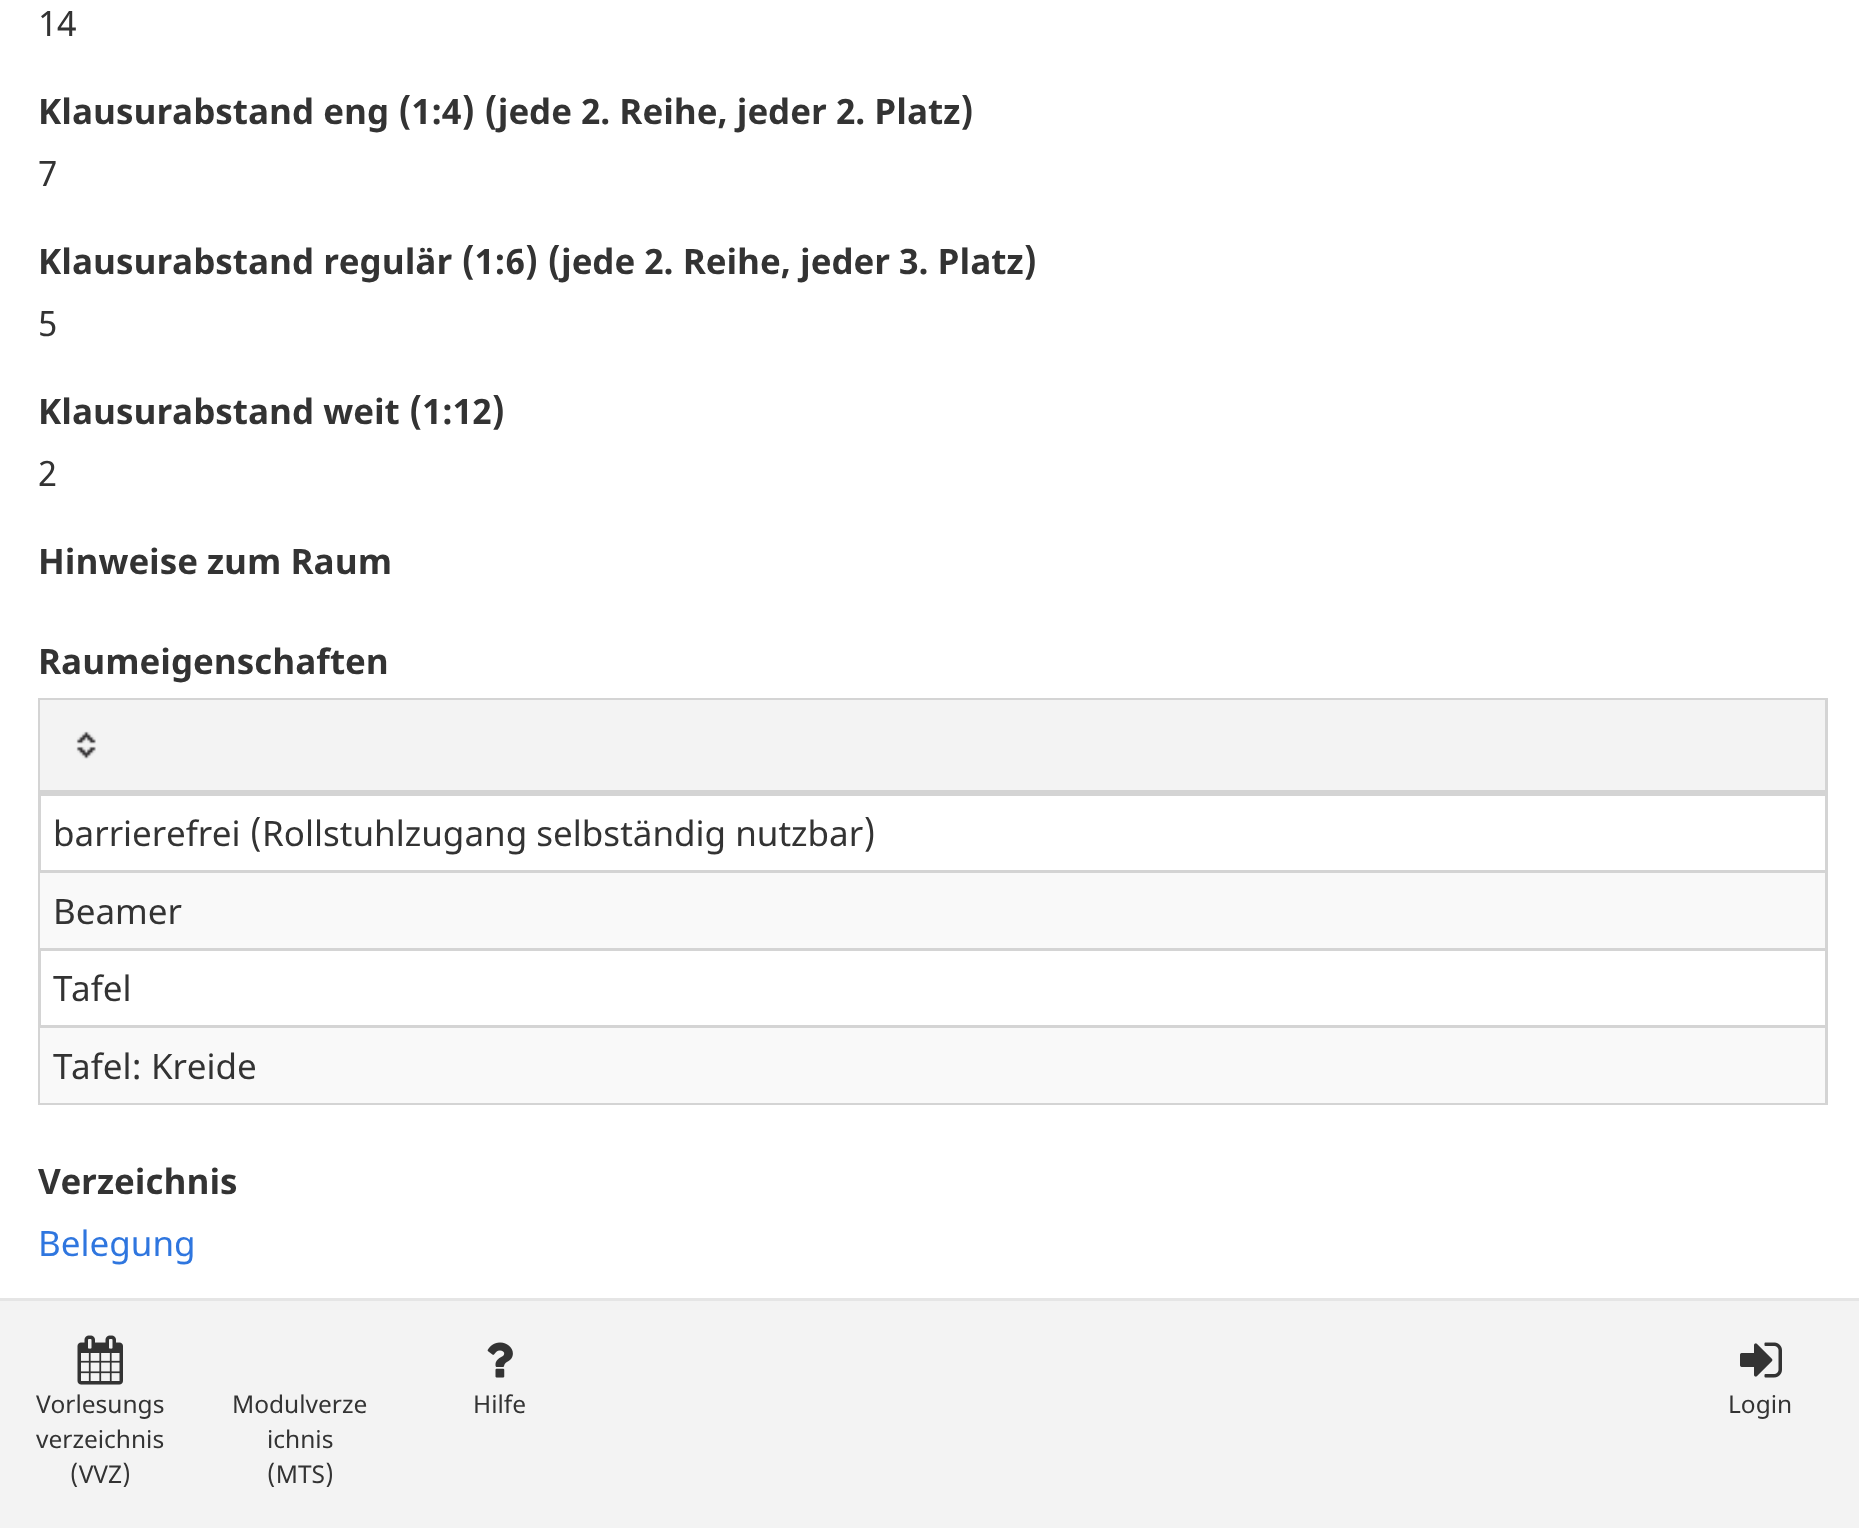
<!DOCTYPE html>
<meta charset="utf-8">
<style>body { margin: 0 } canvas { display: block }</style>
<canvas id="canvas" width="1859" height="1528"></canvas>
<img id="img1" src="img_01.png" hidden>
<img id="img2" src="img_02.png" hidden>
<img id="img3" src="img_03.png" hidden>
<img id="img4" src="img_04.png" hidden>
<script>
window.onload = function () {
	const canvas = document.getElementById("canvas");
	const ctx = canvas.getContext("2d");
	ctx.miterLimit = 4;
	ctx.fontKerning = "normal";
	function txt(s, x, y) {
		ctx.fillText(s, x, y);
	}
	function fill(x, y, w, h) {
		ctx.fillRect(x, y, w, h);
	}
	function img(id, x, y, w, h) {
		ctx.drawImage(document.getElementById(id), x, y, w, h);
	}

	ctx.fillStyle = "#FFFFFF";
	fill(0, 0, 1859, 1528);
	ctx.strokeStyle = "#D4D4D4";
	ctx.lineWidth = 3;
	ctx.strokeRect(39.5, 699.5, 1787, 404);
	ctx.fillStyle = "#F3F3F3";
	fill(40, 700, 1785, 90);
	img("img1", 76, 731, 20, 28);
	ctx.fillStyle = "#D4D4D4";
	fill(40, 790, 1785, 6);
	ctx.fillStyle = "#F9F9F9";
	fill(40, 873, 1785, 75);
	ctx.fillStyle = "#D4D4D4";
	fill(40, 870, 1785, 3);
	fill(40, 948, 1785, 3);
	ctx.fillStyle = "#F9F9F9";
	fill(40, 1028, 1785, 75);
	ctx.fillStyle = "#D4D4D4";
	fill(40, 1025, 1785, 3);
	ctx.fillStyle = "#F3F3F3";
	fill(0, 1301, 1859, 227);
	ctx.fillStyle = "#E5E5E5";
	fill(0, 1298, 1859, 3);
	img("img2", 77, 1335, 46, 50);
	img("img3", 487, 1342, 26, 36);
	img("img4", 1740, 1342, 42, 36);
	ctx.font = "35px Noto Sans";
	ctx.fillStyle = "#333333";
	txt("14", 38, 36);
	ctx.font = "bold 35px Noto Sans";
	txt("Klausurabstand eng (1:4) (jede 2. Reihe, jeder 2. Platz)", 38, 124);
	ctx.font = "35px Noto Sans";
	txt("7", 38, 186);
	ctx.font = "bold 35px Noto Sans";
	txt("Klausurabstand regulär (1:6) (jede 2. Reihe, jeder 3. Platz)", 38, 274);
	ctx.font = "35px Noto Sans";
	txt("5", 38, 336);
	ctx.font = "bold 35px Noto Sans";
	txt("Klausurabstand weit (1:12)", 38, 424);
	ctx.font = "35px Noto Sans";
	txt("2", 38, 486);
	ctx.font = "bold 35px Noto Sans";
	txt("Hinweise zum Raum", 38, 574);
	txt("Raumeigenschaften", 38, 674);
	ctx.font = "35px Noto Sans";
	txt("barrierefrei (Rollstuhlzugang selbständig nutzbar)", 53, 846);
	txt("Beamer", 53, 924);
	txt("Tafel", 53, 1001);
	txt("Tafel: Kreide", 53, 1079);
	ctx.font = "bold 35px Noto Sans";
	txt("Verzeichnis", 38, 1194);
	ctx.font = "35px Noto Sans";
	ctx.fillStyle = "#2F76DF";
	txt("Belegung", 38, 1256);
	ctx.font = "24.5px Noto Sans";
	ctx.fillStyle = "#333333";
	txt("Vorlesungs", 36, 1413);
	txt("verzeichnis", 36, 1448);
	txt("(VVZ)", 70, 1483);
	txt("Modulverze", 232, 1413);
	txt("ichnis", 267, 1448);
	txt("(MTS)", 267, 1483);
	txt("Hilfe", 473, 1413);
	txt("Login", 1728, 1413);
};
</script>
